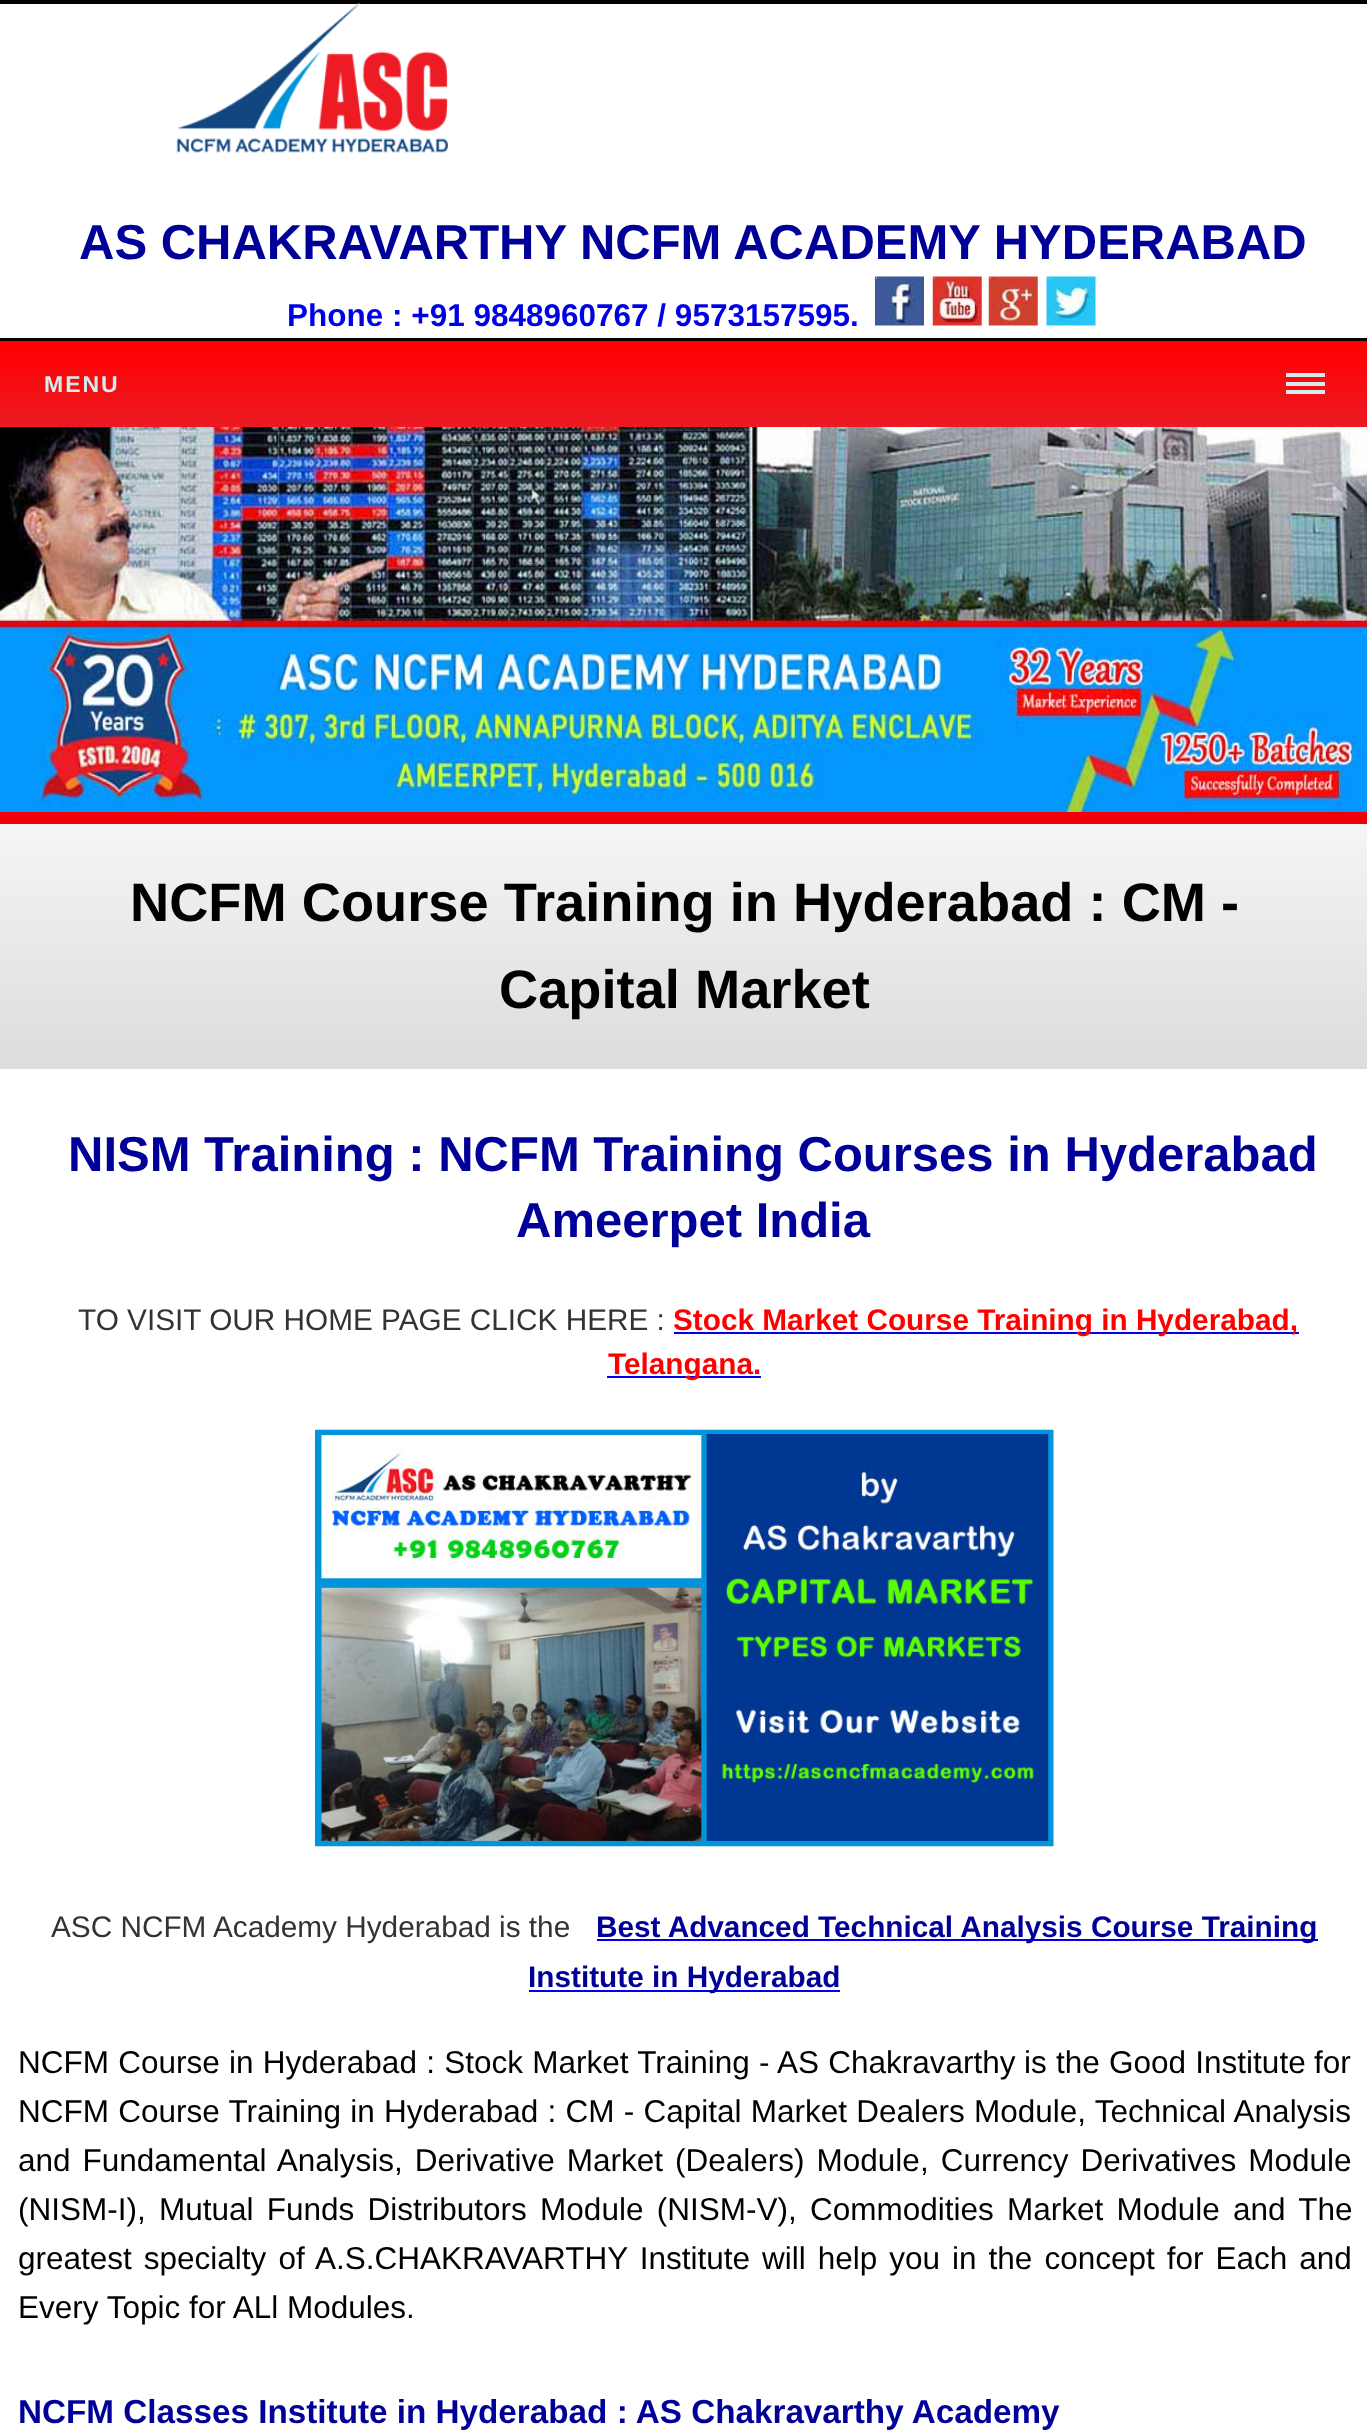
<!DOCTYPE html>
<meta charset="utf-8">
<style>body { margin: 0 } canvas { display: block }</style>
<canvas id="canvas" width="1367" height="2433"></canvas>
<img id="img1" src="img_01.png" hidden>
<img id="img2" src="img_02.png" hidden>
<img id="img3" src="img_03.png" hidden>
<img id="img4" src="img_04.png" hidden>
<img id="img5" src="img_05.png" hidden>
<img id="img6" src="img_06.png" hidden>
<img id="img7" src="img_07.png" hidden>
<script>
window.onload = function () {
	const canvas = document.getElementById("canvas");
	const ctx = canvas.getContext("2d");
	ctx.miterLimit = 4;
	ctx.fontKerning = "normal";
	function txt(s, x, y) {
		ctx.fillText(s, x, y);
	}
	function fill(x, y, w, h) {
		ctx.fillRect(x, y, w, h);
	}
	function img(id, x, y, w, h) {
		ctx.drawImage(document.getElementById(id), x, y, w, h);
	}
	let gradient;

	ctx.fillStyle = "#FFFFFF";
	fill(0, 0, 1367, 2433);
	ctx.fillStyle = "#000000";
	fill(0, 0, 1367, 4);
	fill(0, 338, 1367, 3);
	img("img1", 176, 3, 272, 150);
	img("img2", 875, 276, 49, 50);
	img("img3", 932, 276, 50, 50);
	img("img4", 988, 276, 50, 50);
	img("img5", 1046, 276, 50, 50);
	gradient = ctx.createLinearGradient(684, 341, 684, 427);
	gradient.addColorStop(0, "#FF0000");
	gradient.addColorStop(1, "#EC1A23");
	ctx.fillStyle = gradient;
	fill(0, 341, 1367, 86);
	ctx.fillStyle = "#D3ECED";
	fill(1286, 373, 39, 4);
	fill(1286, 382, 39, 4);
	fill(1286, 390, 39, 4);
	ctx.fillStyle = "#EF0007";
	fill(0, 812, 1367, 12);
	img("img6", 0, 427, 1367, 385);
	gradient = ctx.createLinearGradient(684, 824, 684, 1069);
	gradient.addColorStop(0, "#F5F5F5");
	gradient.addColorStop(1, "#DCDCDC");
	ctx.fillStyle = gradient;
	fill(0, 824, 1367, 245);
	ctx.fillStyle = "#0000EE";
	fill(674, 1332, 625, 2);
	fill(607, 1376, 154, 2);
	img("img7", 315, 1429, 739, 418);
	fill(597, 1939, 721, 2);
	fill(529, 1990, 311, 2);
	ctx.font = "bold 49px Liberation Sans";
	ctx.fillStyle = "#000099";
	txt("AS CHAKRAVARTHY NCFM ACADEMY HYDERABAD", 79, 259);
	ctx.font = "bold 31.5px Liberation Sans";
	ctx.fillStyle = "#0000E8";
	txt("Phone : +91 9848960767 / 9573157595.", 287, 326);
	ctx.letterSpacing = "2px";
	ctx.font = "bold 23px Liberation Sans";
	ctx.fillStyle = "#D3ECED";
	txt("MENU", 44, 392);
	ctx.letterSpacing = "0px";
	ctx.font = "bold 54.25px Liberation Sans";
	ctx.fillStyle = "#000000";
	txt("NCFM Course Training in Hyderabad : CM -", 130, 921);
	txt("Capital Market", 499, 1008);
	ctx.font = "bold 49px Liberation Sans";
	ctx.fillStyle = "#000099";
	txt("NISM Training : NCFM Training Courses in Hyderabad", 68, 1171);
	txt("Ameerpet India", 516, 1237);
	ctx.font = "29.75px Liberation Sans";
	ctx.fillStyle = "#333333";
	txt("TO VISIT OUR HOME PAGE CLICK HERE :", 78, 1330);
	ctx.font = "bold 29.75px Liberation Sans";
	ctx.fillStyle = "#FF0000";
	txt("Stock Market Course Training in Hyderabad,", 673, 1330);
	txt("Telangana.", 608, 1374);
	ctx.font = "29.75px Liberation Sans";
	ctx.fillStyle = "#333333";
	txt("ASC NCFM Academy Hyderabad is the", 51, 1937);
	ctx.font = "bold 29.75px Liberation Sans";
	ctx.fillStyle = "#000099";
	txt("Best Advanced Technical Analysis Course Training", 596, 1937);
	txt("Institute in Hyderabad", 528, 1987);
	ctx.wordSpacing = "0.5px";
	ctx.font = "31.5px Liberation Sans";
	ctx.fillStyle = "#000000";
	txt("NCFM Course in Hyderabad : Stock Market Training - AS Chakravarthy", 18, 2073);
	txt("is the Good Institute", 1024, 2073);
	ctx.wordSpacing = "0px";
	txt("for", 1314, 2073);
	ctx.wordSpacing = "0.5px";
	txt("NCFM Course Training in Hyderabad : CM - Capital Market Dealers", 18, 2122);
	txt("Module, Technical Analysis", 974, 2122);
	ctx.wordSpacing = "3.25px";
	txt("and Fundamental Analysis, Derivative Market (Dealers) Module, Currency Derivatives Module", 18, 2171);
	ctx.wordSpacing = "4.5px";
	txt("(NISM-I), Mutual Funds Distributors Module (NISM-V), Commodities Market Module and The", 18, 2220);
	ctx.wordSpacing = "3.25px";
	txt("greatest specialty of A.S.CHAKRAVARTHY Institute will help you in the concept for Each and", 18, 2269);
	ctx.wordSpacing = "0px";
	txt("Every Topic for ALl Modules.", 18, 2318);
	ctx.font = "bold 33.25px Liberation Sans";
	ctx.fillStyle = "#000099";
	txt("NCFM Classes Institute in Hyderabad : AS Chakravarthy Academy", 18, 2423);
};
</script>
